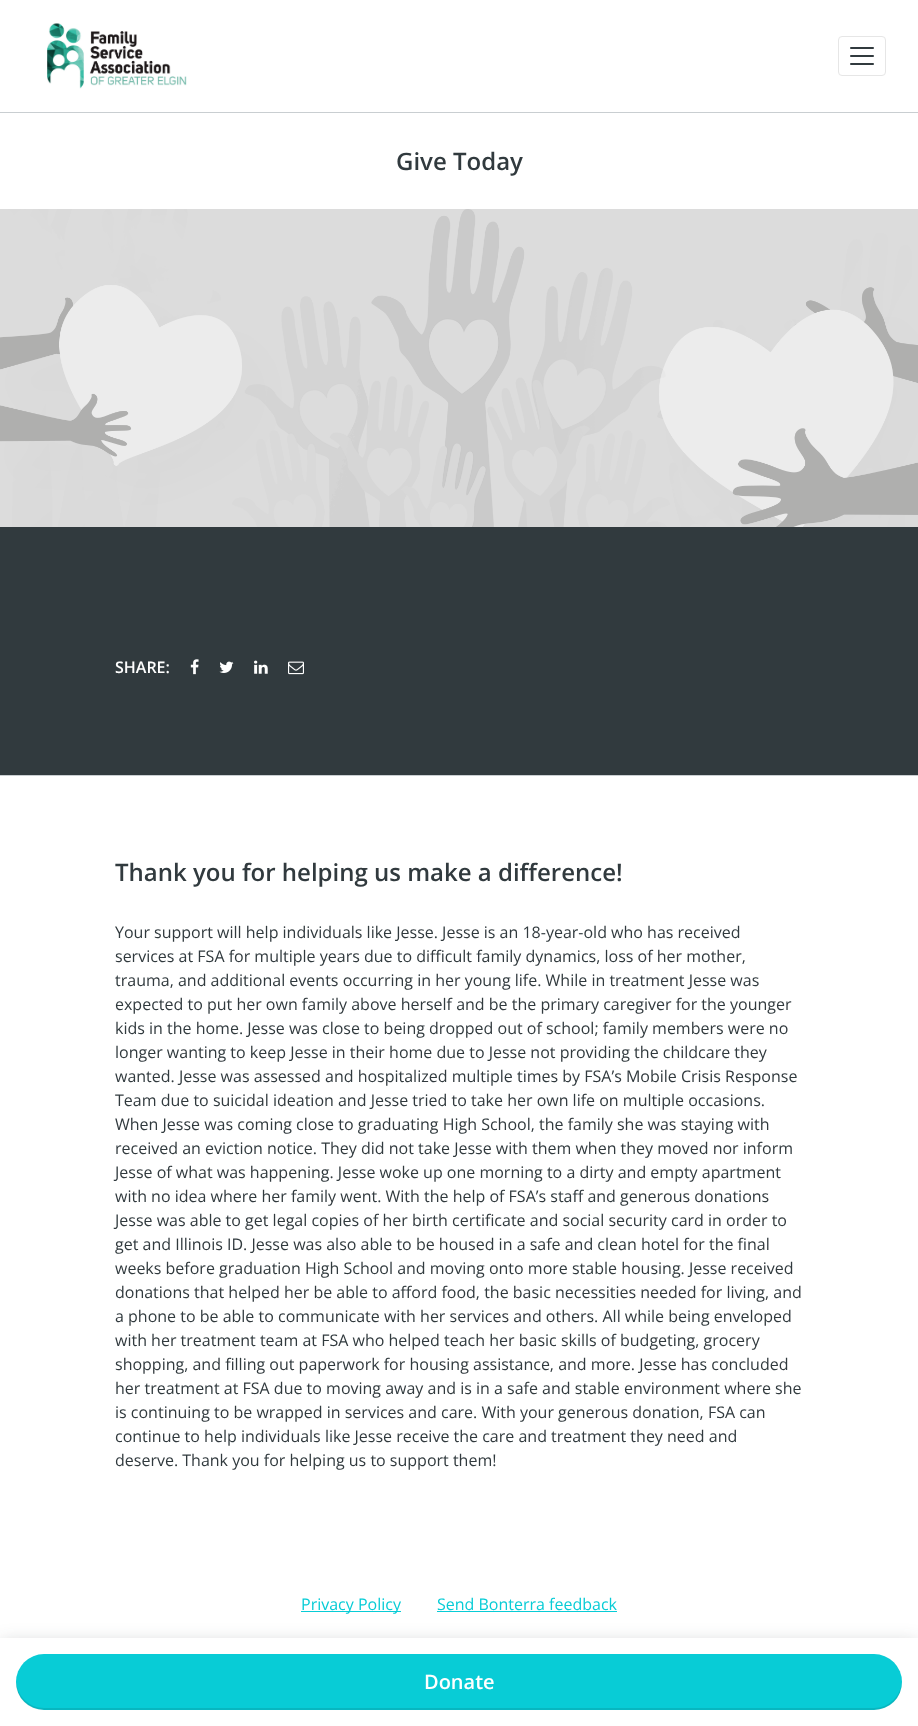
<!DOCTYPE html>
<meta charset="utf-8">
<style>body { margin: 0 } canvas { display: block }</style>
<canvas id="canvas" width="918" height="1726"></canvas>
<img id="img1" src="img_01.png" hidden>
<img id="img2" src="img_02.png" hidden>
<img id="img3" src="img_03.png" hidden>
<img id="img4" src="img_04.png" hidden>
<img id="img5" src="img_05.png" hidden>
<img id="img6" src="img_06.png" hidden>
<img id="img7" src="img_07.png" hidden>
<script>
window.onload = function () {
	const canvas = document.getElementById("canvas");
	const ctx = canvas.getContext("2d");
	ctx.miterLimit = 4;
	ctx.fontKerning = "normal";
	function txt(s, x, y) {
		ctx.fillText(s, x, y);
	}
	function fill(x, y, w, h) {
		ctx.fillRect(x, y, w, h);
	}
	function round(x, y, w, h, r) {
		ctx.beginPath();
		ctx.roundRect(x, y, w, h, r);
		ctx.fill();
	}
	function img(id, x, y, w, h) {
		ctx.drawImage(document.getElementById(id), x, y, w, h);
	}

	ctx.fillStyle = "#FFFFFF";
	fill(0, 0, 918, 1726);
	ctx.fillStyle = "#C9CED1";
	fill(0, 112, 918, 1);
	img("img1", 47, 23, 140, 66);
	ctx.beginPath();
	ctx.roundRect(838.5, 36.5, 47, 39, 3.5);
	ctx.strokeStyle = "#E6E6E6";
	ctx.stroke();
	img("img2", 850, 47, 24, 18);
	img("img3", 0, 209, 918, 318);
	ctx.fillStyle = "#313A3E";
	fill(0, 527, 918, 248);
	img("img4", 190, 659, 9, 16);
	img("img5", 219, 661, 15, 12);
	img("img6", 254, 660, 14, 14);
	img("img7", 288, 661, 16, 14);
	ctx.fillStyle = "rgba(29, 38, 43, 0.2)";
	ctx.filter = "blur(9px)";
	ctx.beginPath();
	ctx.rect(0, 1642, 918, 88);
	ctx.fill();
	ctx.filter = "none";
	ctx.fillStyle = "#FFFFFF";
	fill(0, 1638, 918, 88);
	ctx.fillStyle = "#08CCD6";
	round(16, 1654, 886, 56, 28);
	ctx.fillStyle = "rgba(0, 0, 0, 0.1)";
	ctx.beginPath();
	ctx.moveTo(16, 1681);
	ctx.bezierCurveTo(15, 1697, 28, 1710, 44, 1710);
	ctx.lineTo(874, 1710);
	ctx.bezierCurveTo(880, 1710, 885, 1708, 890, 1705);
	ctx.bezierCurveTo(898, 1700, 902, 1691, 902, 1681);
	ctx.bezierCurveTo(901, 1696, 889, 1708, 874, 1708);
	ctx.lineTo(44, 1708);
	ctx.bezierCurveTo(29, 1708, 17, 1696, 16, 1681);
	ctx.closePath();
	ctx.fill();
	ctx.fillStyle = "#C9CED1";
	fill(0, 775, 918, 1);
	ctx.fillStyle = "#08CCD6";
	fill(301, 1611, 100, 1);
	fill(437, 1611, 180, 1);
	ctx.font = "600 24px Open Sans";
	ctx.fillStyle = "#313A3E";
	txt("Give Today", 396, 170);
	ctx.font = "600 16px Open Sans";
	ctx.fillStyle = "#FFFFFF";
	txt("SHARE:", 115, 673);
	ctx.font = "600 20px Open Sans";
	txt("Donate", 424, 1689);
	ctx.font = "600 24px Open Sans";
	ctx.fillStyle = "#313A3E";
	txt("Thank you for helping us make a difference!", 115, 881);
	ctx.font = "16px Open Sans";
	txt("Your support will help individuals like Jesse. Jesse is an 18-year-old who has received", 115, 938);
	txt("services at FSA for multiple years due to difficult family dynamics, loss of her mother,", 115, 962);
	txt("trauma, and additional events occurring in her young life. While in treatment Jesse was", 115, 986);
	txt("expected to put her own family above herself and be the primary caregiver for the younger", 115, 1010);
	txt("kids in the home. Jesse was close to being dropped out of school; family members were no", 115, 1034);
	txt("longer wanting to keep Jesse in their home due to Jesse not providing the childcare they", 115, 1058);
	txt("wanted. Jesse was assessed and hospitalized multiple times by FSA’s Mobile Crisis Response", 115, 1082);
	txt("Team due to suicidal ideation and Jesse tried to take her own life on multiple occasions.", 115, 1106);
	txt("When Jesse was coming close to graduating High School, the family she was staying with", 115, 1130);
	txt("received an eviction notice. They did not take Jesse with them when they moved nor inform", 115, 1154);
	txt("Jesse of what was happening. Jesse woke up one morning to a dirty and empty apartment", 115, 1178);
	txt("with no idea where her family went. With the help of FSA’s staff and generous donations", 115, 1202);
	txt("Jesse was able to get legal copies of her birth certificate and social security card in order to", 115, 1226);
	txt("get and Illinois ID. Jesse was also able to be housed in a safe and clean hotel for the final", 115, 1250);
	txt("weeks before graduation High School and moving onto more stable housing. Jesse received", 115, 1274);
	txt("donations that helped her be able to afford food, the basic necessities needed for living, and", 115, 1298);
	txt("a phone to be able to communicate with her services and others. All while being enveloped", 115, 1322);
	txt("with her treatment team at FSA who helped teach her basic skills of budgeting, grocery", 115, 1346);
	txt("shopping, and filling out paperwork for housing assistance, and more. Jesse has concluded", 115, 1370);
	txt("her treatment at FSA due to moving away and is in a safe and stable environment where she", 115, 1394);
	txt("is continuing to be wrapped in services and care. With your generous donation, FSA can", 115, 1418);
	txt("continue to help individuals like Jesse receive the care and treatment they need and", 115, 1442);
	txt("deserve. Thank you for helping us to support them!", 115, 1466);
	ctx.fillStyle = "#08CCD6";
	txt("Privacy Policy", 301, 1610);
	txt("Send Bonterra feedback", 437, 1610);
};
</script>
